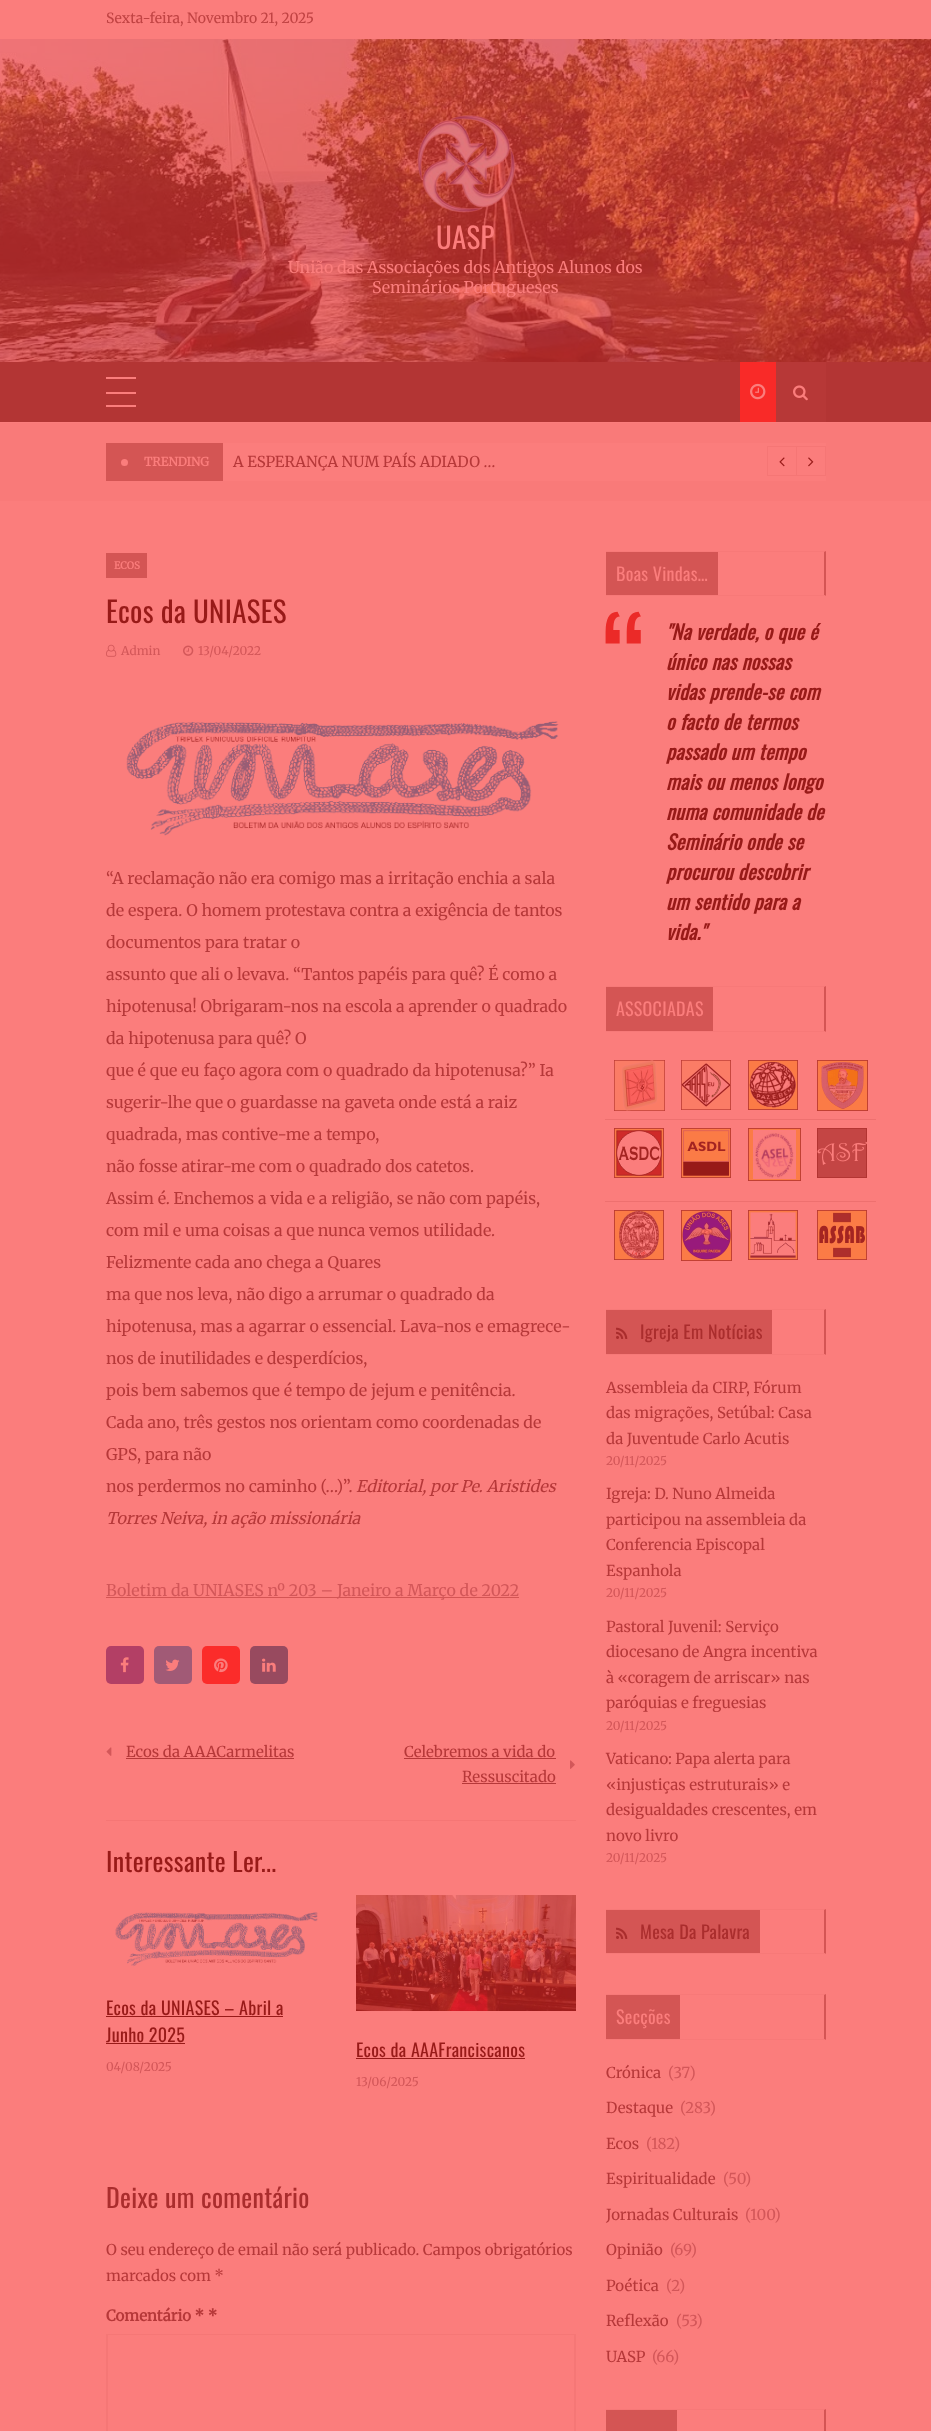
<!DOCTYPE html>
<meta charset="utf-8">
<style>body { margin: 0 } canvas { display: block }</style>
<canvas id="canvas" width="931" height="2431"></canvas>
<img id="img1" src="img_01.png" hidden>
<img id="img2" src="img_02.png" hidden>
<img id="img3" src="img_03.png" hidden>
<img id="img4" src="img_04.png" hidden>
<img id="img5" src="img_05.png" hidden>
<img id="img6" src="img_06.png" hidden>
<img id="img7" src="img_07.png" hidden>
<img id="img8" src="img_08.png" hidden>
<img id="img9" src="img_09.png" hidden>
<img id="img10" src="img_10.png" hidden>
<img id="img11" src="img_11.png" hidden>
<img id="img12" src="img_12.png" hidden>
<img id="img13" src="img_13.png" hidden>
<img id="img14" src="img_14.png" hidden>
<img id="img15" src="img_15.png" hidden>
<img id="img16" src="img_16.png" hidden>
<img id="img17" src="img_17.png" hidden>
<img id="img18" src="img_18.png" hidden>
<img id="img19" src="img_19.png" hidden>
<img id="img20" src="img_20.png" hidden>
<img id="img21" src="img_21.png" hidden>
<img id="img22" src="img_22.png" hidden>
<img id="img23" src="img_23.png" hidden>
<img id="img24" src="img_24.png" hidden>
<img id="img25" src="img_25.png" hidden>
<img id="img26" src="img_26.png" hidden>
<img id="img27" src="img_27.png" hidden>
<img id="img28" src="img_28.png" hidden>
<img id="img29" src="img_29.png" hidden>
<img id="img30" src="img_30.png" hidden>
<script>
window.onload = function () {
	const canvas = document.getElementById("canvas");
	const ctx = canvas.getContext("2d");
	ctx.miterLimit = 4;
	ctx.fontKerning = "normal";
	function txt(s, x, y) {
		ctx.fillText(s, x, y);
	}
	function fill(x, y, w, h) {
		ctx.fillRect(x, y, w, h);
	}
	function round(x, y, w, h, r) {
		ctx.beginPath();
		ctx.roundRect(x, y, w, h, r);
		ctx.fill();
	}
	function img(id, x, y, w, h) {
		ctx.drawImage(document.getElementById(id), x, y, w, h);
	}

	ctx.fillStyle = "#FB7D7C";
	fill(0, 0, 931, 2431);
	img("img1", 0, 39, 931, 323);
	img("img2", 417, 114, 99, 99);
	ctx.fillStyle = "#B33534";
	fill(0, 362, 931, 60);
	ctx.fillStyle = "#FB7D7C";
	fill(106, 377, 30, 2);
	fill(106, 392, 30, 2);
	fill(106, 405, 30, 2);
	ctx.fillStyle = "#F92A28";
	fill(740, 362, 36, 60);
	img("img3", 750, 383, 16, 17);
	ctx.fillStyle = "#B73837";
	fill(776, 362, 50, 60);
	img("img4", 793, 385, 15, 16);
	ctx.fillStyle = "#F97A79";
	fill(0, 423, 931, 78);
	ctx.fillStyle = "#FB7D7C";
	fill(223, 443, 603, 38);
	ctx.fillStyle = "#D45554";
	fill(106, 443, 117, 38);
	ctx.fillStyle = "#FB7D7C";
	ctx.beginPath();
	ctx.arc(124.5, 462.5, 3.5, 0, Math.PI * 2);
	ctx.fill();
	ctx.strokeStyle = "#F57675";
	ctx.strokeRect(767.5, 446.5, 29, 29);
	img("img5", 779, 457, 6, 10);
	ctx.strokeRect(796.5, 446.5, 29, 29);
	img("img6", 808, 457, 6, 10);
	ctx.fillStyle = "#D45554";
	fill(106, 553, 41, 25);
	img("img7", 106, 644, 11, 13);
	img("img8", 183, 645, 11, 11);
	img("img9", 126, 721, 433, 115);
	fill(106, 1597, 413, 1);
	ctx.fillStyle = "#B33F65";
	round(106, 1646, 38, 38, 5);
	img("img10", 120, 1657, 9, 16);
	ctx.fillStyle = "#A15A76";
	round(154, 1646, 38, 38, 5);
	img("img11", 165, 1659, 15, 12);
	ctx.fillStyle = "#FB2C2A";
	round(202, 1646, 38, 38, 5);
	img("img12", 214, 1658, 14, 15);
	ctx.fillStyle = "#984A5F";
	round(250, 1646, 38, 38, 5);
	img("img13", 262, 1658, 14, 14);
	img("img14", 106, 1747, 6, 9);
	ctx.fillStyle = "#B63839";
	fill(126, 1758, 168, 1);
	fill(404, 1758, 152, 1);
	img("img15", 570, 1760, 5, 9);
	fill(462, 1783, 94, 1);
	ctx.fillStyle = "#F57675";
	fill(106, 1820, 470, 1);
	img("img16", 115, 1912, 203, 55);
	ctx.fillStyle = "#981A18";
	fill(106, 2016, 177, 1);
	fill(106, 2043, 79, 1);
	img("img17", 356, 1895, 220, 116);
	fill(356, 2058, 169, 1);
	ctx.fillStyle = "#F57776";
	fill(106, 2334, 470, 1);
	fill(574, 2334, 2, 97);
	fill(106, 2334, 2, 97);
	ctx.fillStyle = "#F77978";
	ctx.beginPath();
	ctx.moveTo(606, 551);
	ctx.lineTo(826, 551);
	ctx.lineTo(824, 552);
	ctx.lineTo(606, 552);
	ctx.closePath();
	ctx.fill();
	ctx.fillStyle = "#D45554";
	ctx.beginPath();
	ctx.moveTo(826, 551);
	ctx.lineTo(826, 596);
	ctx.lineTo(824, 595);
	ctx.lineTo(824, 552);
	ctx.closePath();
	ctx.fill();
	ctx.fillStyle = "#F77978";
	ctx.beginPath();
	ctx.moveTo(826, 596);
	ctx.lineTo(606, 596);
	ctx.lineTo(606, 595);
	ctx.lineTo(824, 595);
	ctx.closePath();
	ctx.fill();
	ctx.fillStyle = "#D45554";
	fill(606, 552, 112, 43);
	ctx.fillStyle = "#F77978";
	ctx.beginPath();
	ctx.moveTo(606, 986);
	ctx.lineTo(826, 986);
	ctx.lineTo(824, 987);
	ctx.lineTo(606, 987);
	ctx.closePath();
	ctx.fill();
	ctx.fillStyle = "#D45554";
	ctx.beginPath();
	ctx.moveTo(826, 986);
	ctx.lineTo(826, 1032);
	ctx.lineTo(824, 1031);
	ctx.lineTo(824, 987);
	ctx.closePath();
	ctx.fill();
	ctx.fillStyle = "#F77978";
	ctx.beginPath();
	ctx.moveTo(826, 1032);
	ctx.lineTo(606, 1032);
	ctx.lineTo(606, 1031);
	ctx.lineTo(824, 1031);
	ctx.closePath();
	ctx.fill();
	ctx.fillStyle = "#D45554";
	fill(606, 987, 107, 44);
	img("img18", 614, 1060, 51, 51);
	img("img19", 681, 1060, 50, 50);
	img("img20", 748, 1060, 50, 50);
	img("img21", 817, 1060, 51, 51);
	ctx.fillStyle = "#EE706F";
	fill(605, 1119, 271, 1);
	img("img22", 817, 1128, 50, 50);
	img("img23", 614, 1128, 50, 50);
	img("img24", 681, 1128, 50, 50);
	img("img25", 748, 1128, 53, 53);
	fill(605, 1201, 271, 1);
	img("img26", 817, 1210, 50, 50);
	img("img27", 614, 1210, 50, 50);
	img("img28", 681, 1210, 51, 51);
	img("img29", 748, 1210, 50, 50);
	ctx.fillStyle = "#F77978";
	ctx.beginPath();
	ctx.moveTo(606, 1309);
	ctx.lineTo(826, 1309);
	ctx.lineTo(824, 1310);
	ctx.lineTo(606, 1310);
	ctx.closePath();
	ctx.fill();
	ctx.fillStyle = "#D45554";
	ctx.beginPath();
	ctx.moveTo(826, 1309);
	ctx.lineTo(826, 1355);
	ctx.lineTo(824, 1354);
	ctx.lineTo(824, 1310);
	ctx.closePath();
	ctx.fill();
	ctx.fillStyle = "#F77978";
	ctx.beginPath();
	ctx.moveTo(826, 1355);
	ctx.lineTo(606, 1355);
	ctx.lineTo(606, 1354);
	ctx.lineTo(824, 1354);
	ctx.closePath();
	ctx.fill();
	ctx.fillStyle = "#D45554";
	fill(606, 1310, 166, 44);
	img("img30", 616, 1327, 12, 12);
	ctx.fillStyle = "#F77978";
	ctx.beginPath();
	ctx.moveTo(606, 1909);
	ctx.lineTo(826, 1909);
	ctx.lineTo(824, 1910);
	ctx.lineTo(606, 1910);
	ctx.closePath();
	ctx.fill();
	ctx.fillStyle = "#D45554";
	ctx.beginPath();
	ctx.moveTo(826, 1909);
	ctx.lineTo(826, 1954);
	ctx.lineTo(824, 1953);
	ctx.lineTo(824, 1910);
	ctx.closePath();
	ctx.fill();
	ctx.fillStyle = "#F77978";
	ctx.beginPath();
	ctx.moveTo(826, 1954);
	ctx.lineTo(606, 1954);
	ctx.lineTo(606, 1953);
	ctx.lineTo(824, 1953);
	ctx.closePath();
	ctx.fill();
	ctx.fillStyle = "#D45554";
	fill(606, 1910, 154, 43);
	img("img30", 616, 1927, 12, 12);
	ctx.fillStyle = "#F77978";
	ctx.beginPath();
	ctx.moveTo(606, 1994);
	ctx.lineTo(826, 1994);
	ctx.lineTo(824, 1995);
	ctx.lineTo(606, 1995);
	ctx.closePath();
	ctx.fill();
	ctx.fillStyle = "#D45554";
	ctx.beginPath();
	ctx.moveTo(826, 1994);
	ctx.lineTo(826, 2040);
	ctx.lineTo(824, 2039);
	ctx.lineTo(824, 1995);
	ctx.closePath();
	ctx.fill();
	ctx.fillStyle = "#F77978";
	ctx.beginPath();
	ctx.moveTo(826, 2040);
	ctx.lineTo(606, 2040);
	ctx.lineTo(606, 2039);
	ctx.lineTo(824, 2039);
	ctx.closePath();
	ctx.fill();
	ctx.fillStyle = "#D45554";
	fill(606, 1995, 74, 44);
	ctx.fillStyle = "#F77978";
	ctx.beginPath();
	ctx.moveTo(606, 2409);
	ctx.lineTo(826, 2409);
	ctx.lineTo(824, 2410);
	ctx.lineTo(606, 2410);
	ctx.closePath();
	ctx.fill();
	ctx.fillStyle = "#D45554";
	ctx.beginPath();
	ctx.moveTo(826, 2409);
	ctx.lineTo(826, 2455);
	ctx.lineTo(824, 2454);
	ctx.lineTo(824, 2410);
	ctx.closePath();
	ctx.fill();
	fill(606, 2410, 71, 21);
	ctx.font = "300 14px Merriweather";
	ctx.fillStyle = "#C04343";
	txt("Sexta-feira, Novembro 21, 2025", 106, 23);
	ctx.letterSpacing = "0.3px";
	ctx.font = "29px Oswald";
	ctx.fillStyle = "#FB7D7C";
	txt("UASP", 436, 249);
	ctx.letterSpacing = "0px";
	ctx.font = "300 16px Merriweather";
	txt("União das Associações dos Antigos Alunos dos", 288, 273);
	txt("Seminários Portugueses", 372, 293);
	ctx.font = "bold 12px Merriweather";
	txt("TRENDING", 144, 466);
	ctx.font = "300 15px Merriweather";
	ctx.fillStyle = "#B63839";
	txt("A ESPERANÇA NUM PAÍS ADIADO …", 233, 467);
	ctx.font = "bold 10px Merriweather";
	ctx.fillStyle = "#FB7D7C";
	txt("ECOS", 114, 569);
	ctx.letterSpacing = "0.3px";
	ctx.font = "29px Oswald";
	ctx.fillStyle = "#981A18";
	txt("Ecos da UNIASES", 106, 623);
	ctx.letterSpacing = "0px";
	ctx.font = "300 12px Merriweather";
	ctx.fillStyle = "#D35759";
	txt("Admin", 121, 655);
	txt("13/04/2022", 198, 655);
	ctx.font = "300 16px Merriweather";
	ctx.fillStyle = "#B63839";
	txt("“A reclamação não era comigo mas a irritação enchia a sala", 106, 884);
	txt("de espera. O homem protestava contra a exigência de tantos", 106, 916);
	txt("documentos para tratar o", 106, 948);
	txt("assunto que ali o levava. “Tantos papéis para quê? É como a", 106, 980);
	txt("hipotenusa! Obrigaram-nos na escola a aprender o quadrado", 106, 1012);
	txt("da hipotenusa para quê? O", 106, 1044);
	txt("que é que eu faço agora com o quadrado da hipotenusa?” Ia", 106, 1076);
	txt("sugerir-lhe que o guardasse na gaveta onde está a raiz", 106, 1108);
	txt("quadrada, mas contive-me a tempo,", 106, 1140);
	txt("não fosse atirar-me com o quadrado dos catetos.", 106, 1172);
	txt("Assim é. Enchemos a vida e a religião, se não com papéis,", 106, 1204);
	txt("com mil e uma coisas a que nunca vemos utilidade.", 106, 1236);
	txt("Felizmente cada ano chega a Quares", 106, 1268);
	txt("ma que nos leva, não digo a arrumar o quadrado da", 106, 1300);
	txt("hipotenusa, mas a agarrar o essencial. Lava-nos e emagrece-", 106, 1332);
	txt("nos de inutilidades e desperdícios,", 106, 1364);
	txt("pois bem sabemos que é tempo de jejum e penitência.", 106, 1396);
	txt("Cada ano, três gestos nos orientam como coordenadas de", 106, 1428);
	txt("GPS, para não", 106, 1460);
	txt("nos perdermos no caminho (…)”.", 106, 1492);
	ctx.font = "italic 300 16px Merriweather";
	txt("Editorial, por Pe. Aristides", 356, 1492);
	txt("Torres Neiva, in ação missionária", 106, 1524);
	ctx.font = "300 16px Merriweather";
	ctx.fillStyle = "#D35759";
	txt("Boletim da UNIASES nº 203 – Janeiro a Março de 2022", 106, 1596);
	ctx.font = "300 15px Merriweather";
	ctx.fillStyle = "#B63839";
	txt("Ecos da AAACarmelitas", 126, 1757);
	txt("Celebremos a vida do", 404, 1757);
	txt("Ressuscitado", 462, 1782);
	ctx.letterSpacing = "0.3px";
	ctx.font = "26px Oswald";
	ctx.fillStyle = "#981A18";
	txt("Interessante Ler...", 106, 1872);
	ctx.font = "18px Oswald";
	txt("Ecos da UNIASES – Abril a", 106, 2015);
	txt("Junho 2025", 106, 2042);
	ctx.letterSpacing = "0px";
	ctx.font = "300 12px Merriweather";
	ctx.fillStyle = "#D35759";
	txt("04/08/2025", 106, 2071);
	ctx.letterSpacing = "0.3px";
	ctx.font = "18px Oswald";
	ctx.fillStyle = "#981A18";
	txt("Ecos da AAAFranciscanos", 356, 2057);
	ctx.letterSpacing = "0px";
	ctx.font = "300 12px Merriweather";
	ctx.fillStyle = "#D35759";
	txt("13/06/2025", 356, 2086);
	ctx.letterSpacing = "0.3px";
	ctx.font = "26px Oswald";
	ctx.fillStyle = "#AA2D2D";
	txt("Deixe um comentário", 106, 2208);
	ctx.letterSpacing = "0px";
	ctx.font = "300 15px Merriweather";
	ctx.fillStyle = "#B63839";
	txt("O seu endereço de email não será publicado. Campos obrigatórios", 106, 2255);
	txt("marcados com *", 106, 2281);
	ctx.font = "bold 15px Merriweather";
	txt("Comentário * *", 106, 2321);
	ctx.letterSpacing = "0.3px";
	ctx.font = "18px Oswald";
	ctx.fillStyle = "#FB7D7C";
	txt("Boas Vindas…", 616, 581);
	ctx.letterSpacing = "0px";
	ctx.font = "120px Oswald";
	ctx.fillStyle = "#EB2A28";
	txt("“", 602, 713);
	ctx.letterSpacing = "0.3px";
	ctx.font = "italic bold 20px Oswald";
	ctx.fillStyle = "#981A18";
	txt("\"Na verdade, o que é", 666, 640);
	txt("único nas nossas", 666, 670);
	txt("vidas prende-se com", 666, 700);
	txt("o facto de termos", 666, 730);
	txt("passado um tempo", 666, 760);
	txt("mais ou menos longo", 666, 790);
	txt("numa comunidade de", 666, 820);
	txt("Seminário onde se", 666, 850);
	txt("procurou descobrir", 666, 880);
	txt("um sentido para a", 666, 910);
	txt("vida.\"", 666, 940);
	ctx.font = "18px Oswald";
	ctx.fillStyle = "#FB7D7C";
	txt("ASSOCIADAS", 616, 1016);
	ctx.fillStyle = "#AA2D2D";
	txt("Igreja Em Notícias", 640, 1339);
	ctx.letterSpacing = "0px";
	ctx.font = "300 15px Merriweather";
	ctx.fillStyle = "#B63839";
	txt("Assembleia da CIRP, Fórum", 606, 1393);
	txt("das migrações, Setúbal: Casa", 606, 1418);
	txt("da Juventude Carlo Acutis", 606, 1444);
	ctx.font = "300 12px Merriweather";
	ctx.fillStyle = "#D35759";
	txt("20/11/2025", 606, 1465);
	ctx.font = "300 15px Merriweather";
	ctx.fillStyle = "#B63839";
	txt("Igreja: D. Nuno Almeida", 606, 1499);
	txt("participou na assembleia da", 606, 1525);
	txt("Conferencia Episcopal", 606, 1550);
	txt("Espanhola", 606, 1576);
	ctx.font = "300 12px Merriweather";
	ctx.fillStyle = "#D35759";
	txt("20/11/2025", 606, 1597);
	ctx.font = "300 15px Merriweather";
	ctx.fillStyle = "#B63839";
	txt("Pastoral Juvenil: Serviço", 606, 1632);
	txt("diocesano de Angra incentiva", 606, 1657);
	txt("à «coragem de arriscar» nas", 606, 1683);
	txt("paróquias e freguesias", 606, 1708);
	ctx.font = "300 12px Merriweather";
	ctx.fillStyle = "#D35759";
	txt("20/11/2025", 606, 1730);
	ctx.font = "300 15px Merriweather";
	ctx.fillStyle = "#B63839";
	txt("Vaticano: Papa alerta para", 606, 1764);
	txt("«injustiças estruturais» e", 606, 1790);
	txt("desigualdades crescentes, em", 606, 1815);
	txt("novo livro", 606, 1841);
	ctx.font = "300 12px Merriweather";
	ctx.fillStyle = "#D35759";
	txt("20/11/2025", 606, 1862);
	ctx.letterSpacing = "0.3px";
	ctx.font = "18px Oswald";
	ctx.fillStyle = "#AA2D2D";
	txt("Mesa Da Palavra", 640, 1939);
	ctx.fillStyle = "#FB7D7C";
	txt("Secções", 616, 2024);
	ctx.letterSpacing = "0px";
	ctx.font = "300 15px Merriweather";
	ctx.fillStyle = "#B63839";
	txt("Crónica", 606, 2078);
	ctx.fillStyle = "#D35759";
	txt("(37)", 668, 2078);
	ctx.fillStyle = "#B63839";
	txt("Destaque", 606, 2113);
	ctx.fillStyle = "#D35759";
	txt("(283)", 680, 2113);
	ctx.fillStyle = "#B63839";
	txt("Ecos", 606, 2149);
	ctx.fillStyle = "#D35759";
	txt("(182)", 646, 2149);
	ctx.fillStyle = "#B63839";
	txt("Espiritualidade", 606, 2184);
	ctx.fillStyle = "#D35759";
	txt("(50)", 723, 2184);
	ctx.fillStyle = "#B63839";
	txt("Jornadas Culturais", 606, 2220);
	ctx.fillStyle = "#D35759";
	txt("(100)", 745, 2220);
	ctx.fillStyle = "#B63839";
	txt("Opinião", 606, 2255);
	ctx.fillStyle = "#D35759";
	txt("(69)", 670, 2255);
	ctx.fillStyle = "#B63839";
	txt("Poética", 606, 2291);
	ctx.fillStyle = "#D35759";
	txt("(2)", 666, 2291);
	ctx.fillStyle = "#B63839";
	txt("Reflexão", 606, 2326);
	ctx.fillStyle = "#D35759";
	txt("(53)", 676, 2326);
	ctx.fillStyle = "#B63839";
	txt("UASP", 606, 2362);
	ctx.fillStyle = "#D35759";
	txt("(66)", 652, 2362);
};
</script>
